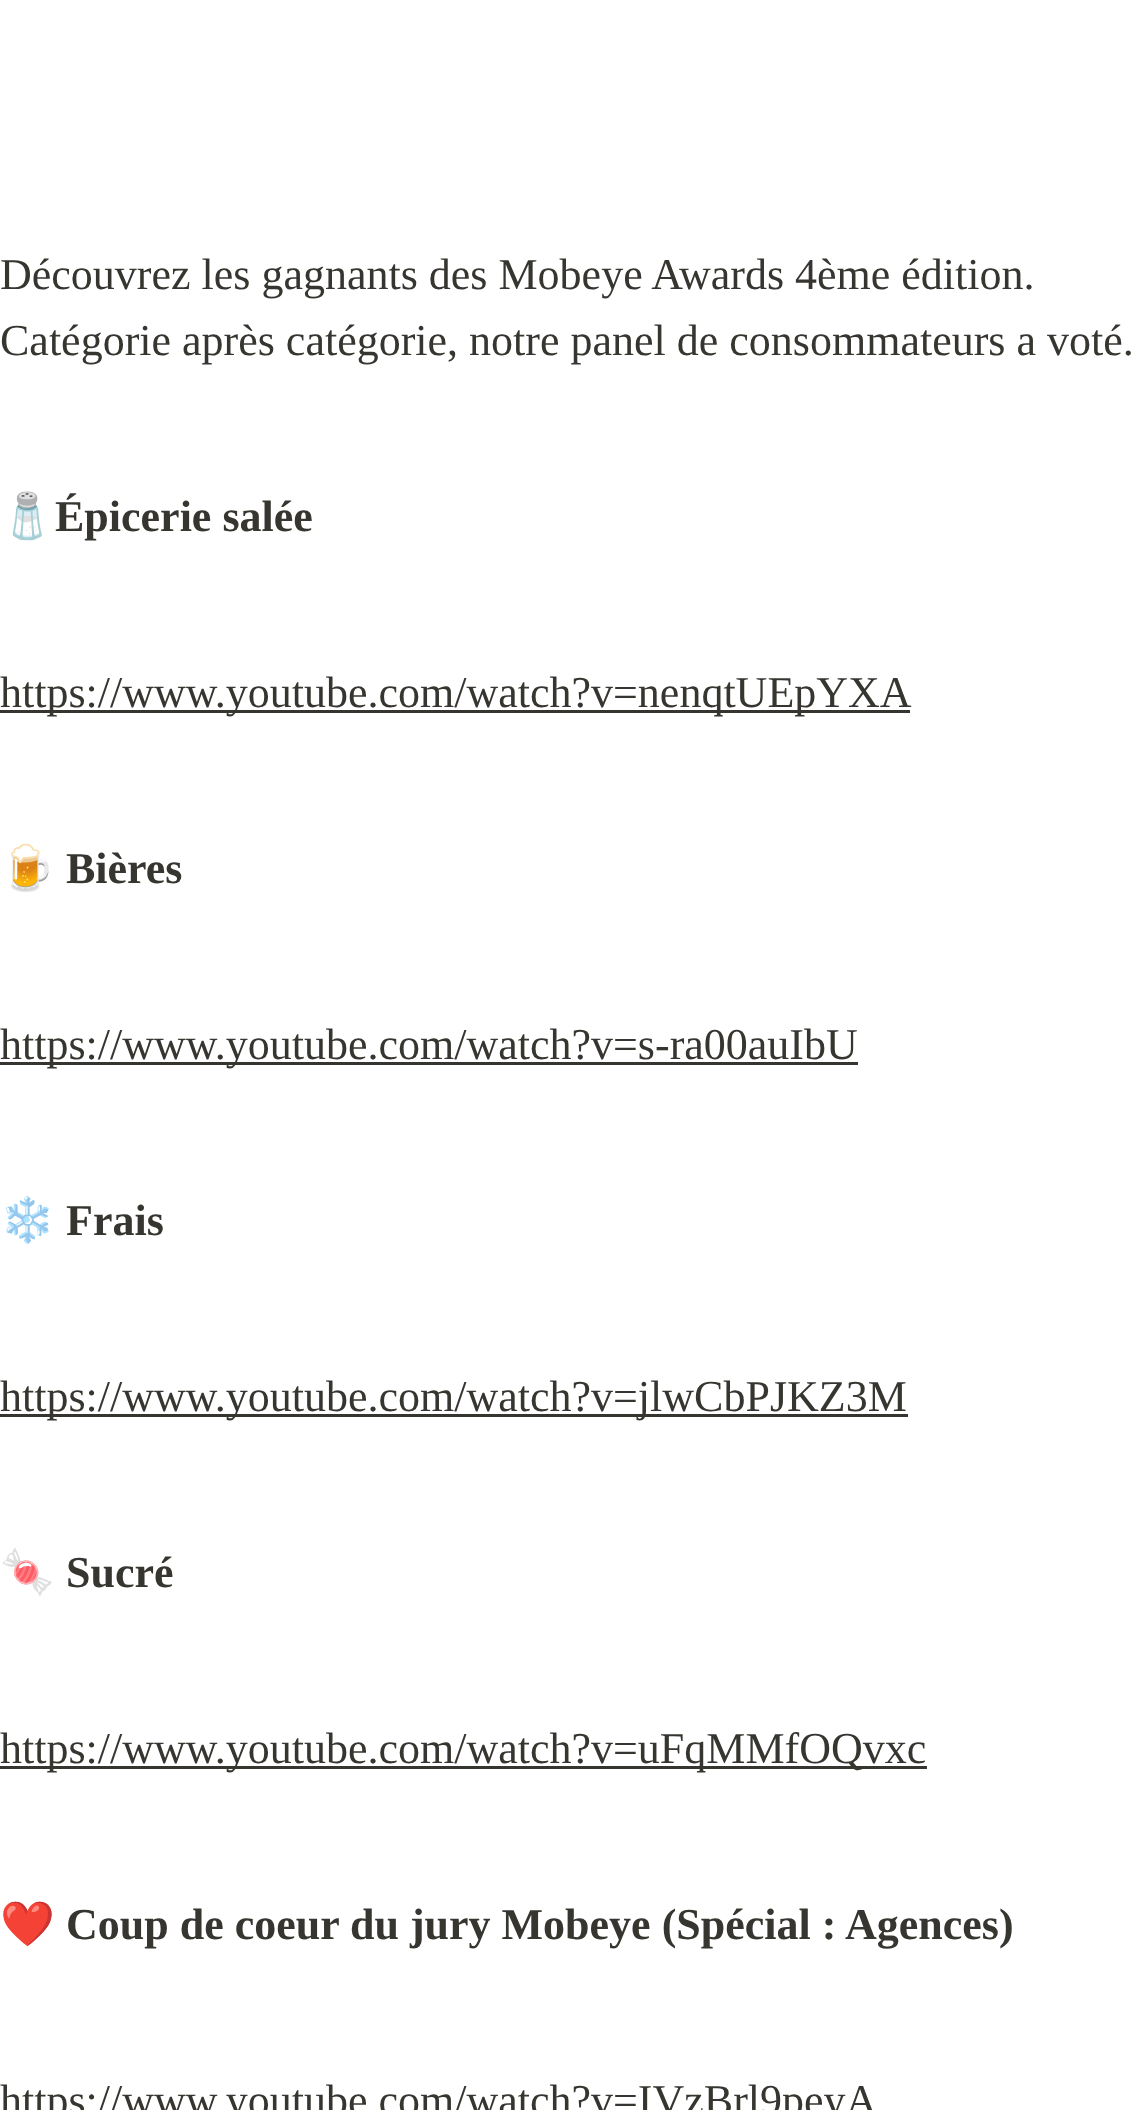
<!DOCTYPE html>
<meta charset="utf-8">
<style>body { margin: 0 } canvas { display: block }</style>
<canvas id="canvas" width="1147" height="2110"></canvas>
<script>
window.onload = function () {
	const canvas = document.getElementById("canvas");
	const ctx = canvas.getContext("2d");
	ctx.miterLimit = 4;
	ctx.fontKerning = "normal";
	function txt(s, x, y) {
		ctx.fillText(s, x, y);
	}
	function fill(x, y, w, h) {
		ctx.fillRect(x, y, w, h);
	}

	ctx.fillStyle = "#FFFFFF";
	fill(0, 0, 1147, 2110);
	ctx.fillStyle = "#37352F";
	fill(0, 710, 910, 3);
	fill(0, 1062, 858, 3);
	fill(0, 1414, 908, 3);
	fill(0, 1766, 927, 3);
	ctx.font = "44px Liberation Serif";
	txt("Découvrez les gagnants des Mobeye Awards 4ème édition.", 0, 289);
	txt("Catégorie après catégorie, notre panel de consommateurs a voté.", 0, 355);
	ctx.font = "bold 44px Noto Color Emoji";
	txt("🧂", 0, 531);
	ctx.font = "bold 44px Liberation Serif";
	txt("Épicerie salée", 55, 531);
	ctx.font = "44px Liberation Serif";
	txt("https://www.youtube.com/watch?v=nenqtUEpYXA", 0, 707);
	ctx.font = "bold 44px Noto Color Emoji";
	txt("🍺", 0, 883);
	ctx.font = "bold 44px Liberation Serif";
	txt("Bières", 66, 883);
	ctx.font = "44px Liberation Serif";
	txt("https://www.youtube.com/watch?v=s-ra00auIbU", 0, 1059);
	ctx.font = "bold 44px Noto Color Emoji";
	txt("❄️", 0, 1235);
	ctx.font = "bold 44px Liberation Serif";
	txt("Frais", 66, 1235);
	ctx.font = "44px Liberation Serif";
	txt("https://www.youtube.com/watch?v=jlwCbPJKZ3M", 0, 1411);
	ctx.font = "bold 44px Noto Color Emoji";
	txt("🍬", 0, 1587);
	ctx.font = "bold 44px Liberation Serif";
	txt("Sucré", 66, 1587);
	ctx.font = "44px Liberation Serif";
	txt("https://www.youtube.com/watch?v=uFqMMfOQvxc", 0, 1763);
	ctx.font = "bold 44px Noto Color Emoji";
	txt("❤️", 0, 1939);
	ctx.font = "bold 44px Liberation Serif";
	txt("Coup de coeur du jury Mobeye (Spécial : Agences)", 66, 1939);
	ctx.font = "44px Liberation Serif";
	txt("https://www.youtube.com/watch?v=IVzBrl9peyA", 0, 2115);
};
</script>
